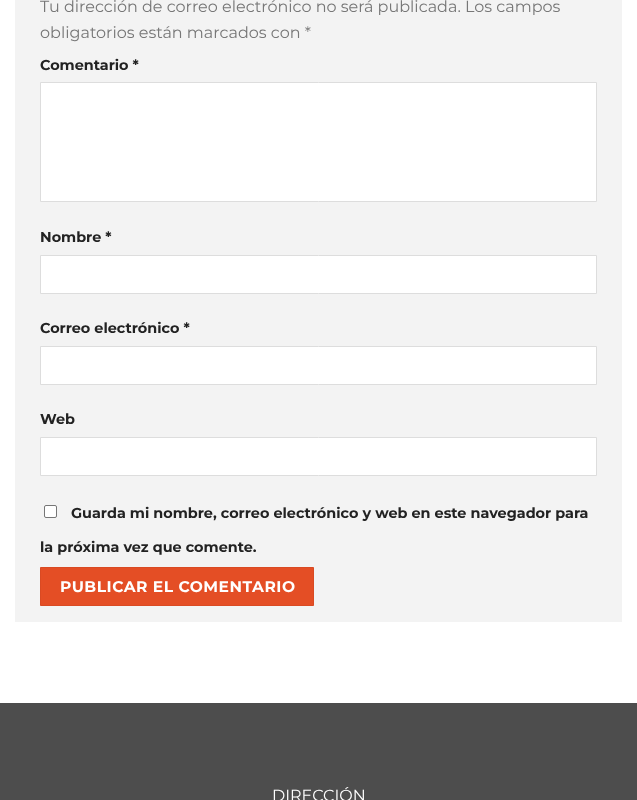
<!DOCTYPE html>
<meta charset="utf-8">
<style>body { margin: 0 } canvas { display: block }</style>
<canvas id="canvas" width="637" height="800"></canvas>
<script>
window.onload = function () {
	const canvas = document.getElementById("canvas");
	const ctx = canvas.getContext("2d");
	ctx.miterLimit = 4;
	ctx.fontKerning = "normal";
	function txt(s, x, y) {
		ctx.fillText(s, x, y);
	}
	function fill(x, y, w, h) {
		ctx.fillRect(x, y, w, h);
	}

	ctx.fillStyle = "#FFFFFF";
	fill(0, 0, 637, 800);
	ctx.fillStyle = "#F3F3F3";
	fill(15, 0, 607, 622);
	ctx.fillStyle = "#FFFFFF";
	ctx.beginPath();
	ctx.rect(40.5, 82.5, 556, 119);
	ctx.fill();
	ctx.strokeStyle = "#DDDDDD";
	ctx.stroke();
	ctx.beginPath();
	ctx.rect(40.5, 255.5, 556, 38);
	ctx.fill();
	ctx.stroke();
	ctx.beginPath();
	ctx.rect(40.5, 346.5, 556, 38);
	ctx.fill();
	ctx.stroke();
	ctx.beginPath();
	ctx.rect(40.5, 437.5, 556, 38);
	ctx.fill();
	ctx.stroke();
	ctx.beginPath();
	ctx.roundRect(44.5, 505.5, 12, 12, 1.5);
	ctx.fill();
	ctx.strokeStyle = "#767676";
	ctx.stroke();
	ctx.fillStyle = "#E44E25";
	ctx.beginPath();
	ctx.rect(40.5, 567.5, 273, 38);
	ctx.fill();
	ctx.strokeStyle = "#D94A23";
	ctx.stroke();
	ctx.fillStyle = "#4D4D4D";
	fill(0, 703, 637, 97);
	ctx.font = "16px Montserrat";
	ctx.fillStyle = "#777777";
	txt("Tu dirección de correo electrónico no será publicada. Los campos", 40, 12);
	txt("obligatorios están marcados con *", 40, 38);
	ctx.font = "bold 14.4px Montserrat";
	ctx.fillStyle = "#222222";
	txt("Comentario *", 40, 70);
	txt("Nombre *", 40, 242);
	txt("Correo electrónico *", 40, 333);
	txt("Web", 40, 424);
	txt("Guarda mi nombre, correo electrónico y web en este navegador para", 71, 518);
	txt("la próxima vez que comente.", 40, 552);
	ctx.letterSpacing = "0.5px";
	ctx.font = "bold 15.5px Montserrat";
	ctx.fillStyle = "#FFFFFF";
	txt("PUBLICAR EL COMENTARIO", 60, 592);
	ctx.letterSpacing = "0px";
	ctx.font = "16px Montserrat";
	txt("DIRECCIÓN", 272, 801);
};
</script>
